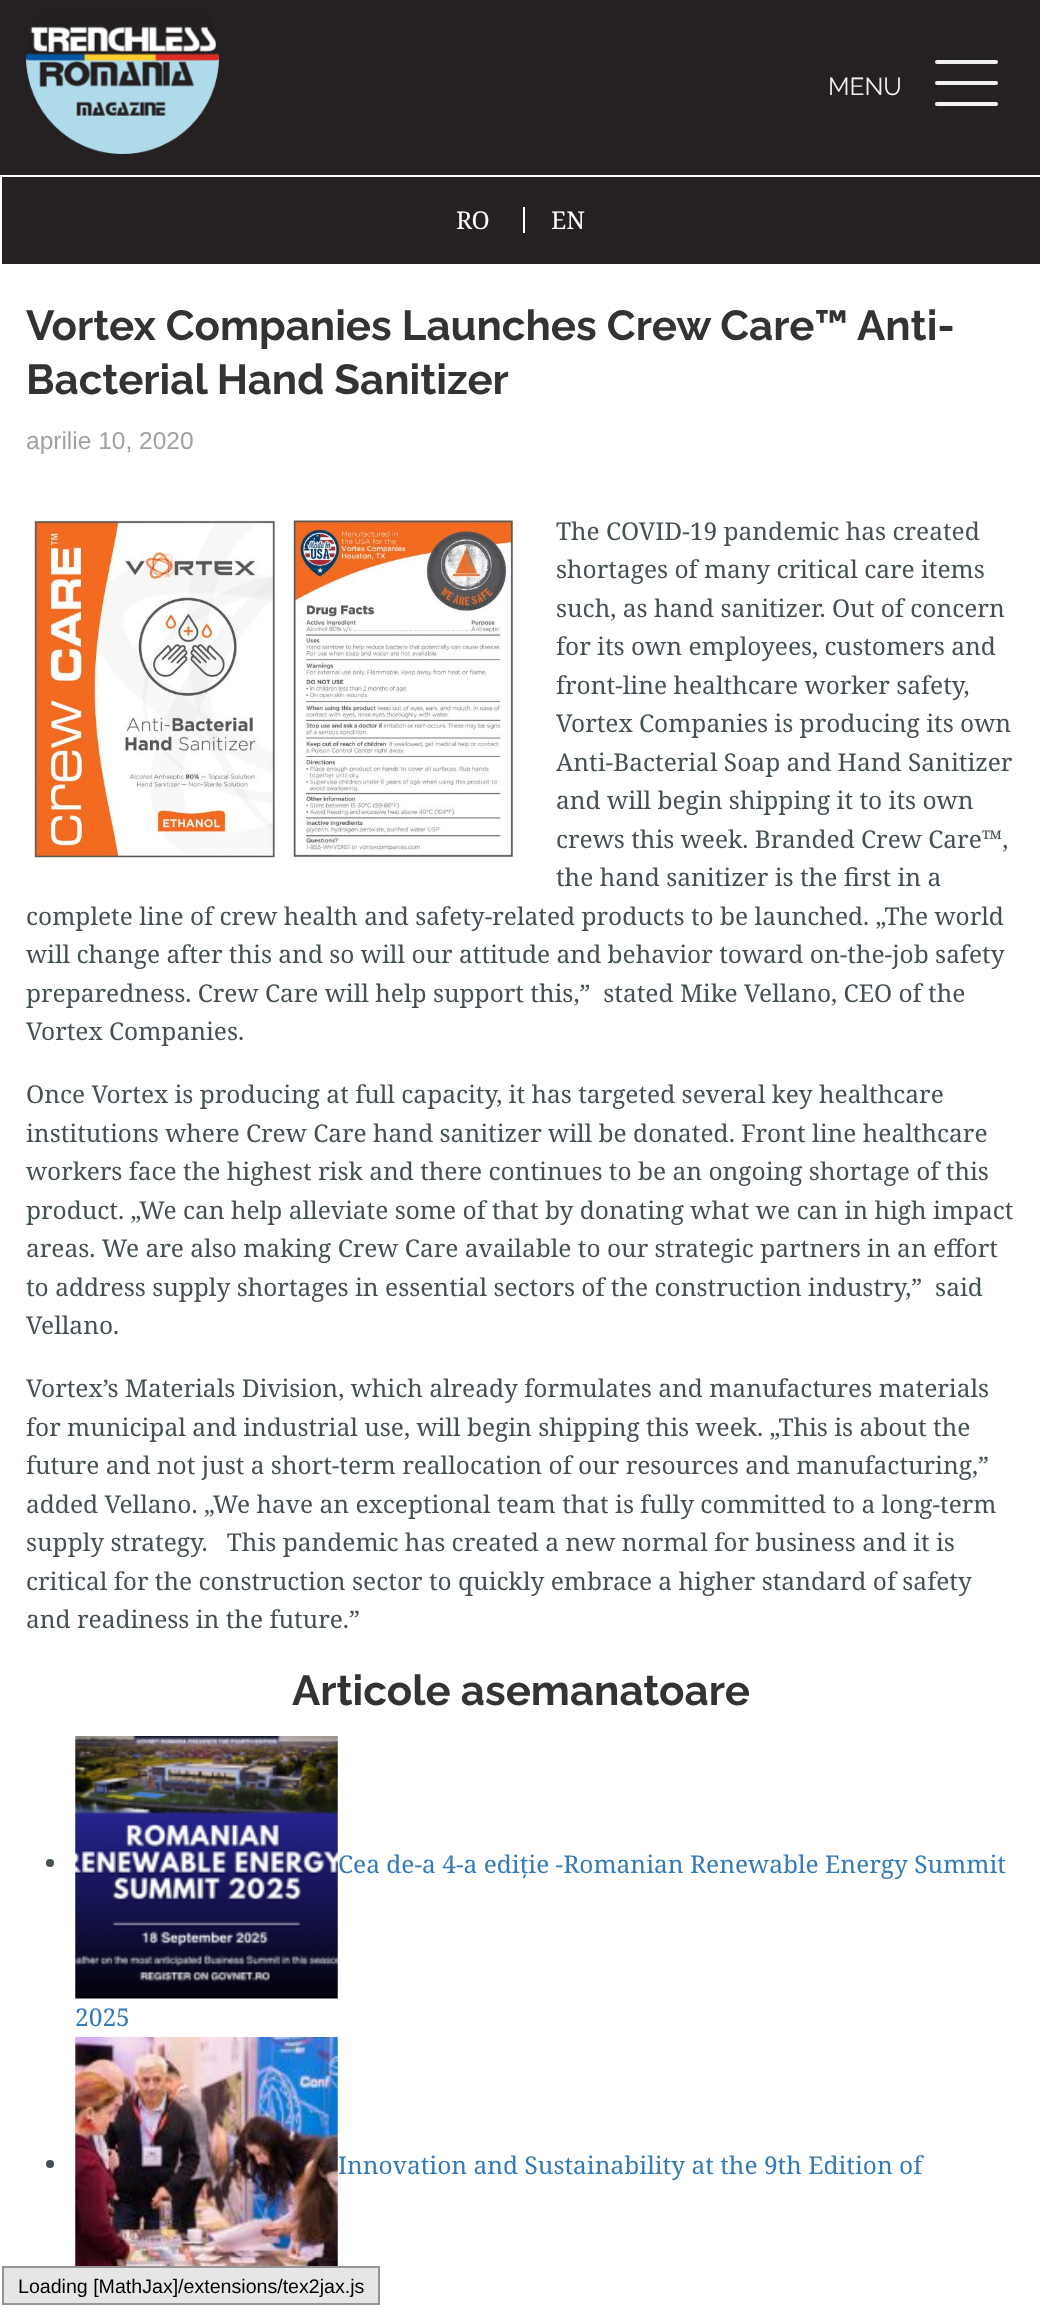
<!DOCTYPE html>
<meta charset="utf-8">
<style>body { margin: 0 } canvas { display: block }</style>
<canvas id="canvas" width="1040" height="2308"></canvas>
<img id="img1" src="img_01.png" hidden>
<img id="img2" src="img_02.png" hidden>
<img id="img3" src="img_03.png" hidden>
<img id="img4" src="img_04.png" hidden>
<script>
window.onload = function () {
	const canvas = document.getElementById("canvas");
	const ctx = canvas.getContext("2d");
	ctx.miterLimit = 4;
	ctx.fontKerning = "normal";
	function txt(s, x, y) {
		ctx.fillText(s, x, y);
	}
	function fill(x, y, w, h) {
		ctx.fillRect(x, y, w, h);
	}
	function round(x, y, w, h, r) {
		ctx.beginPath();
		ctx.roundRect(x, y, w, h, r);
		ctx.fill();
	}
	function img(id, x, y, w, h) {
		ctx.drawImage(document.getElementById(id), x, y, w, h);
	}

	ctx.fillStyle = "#FFFFFF";
	fill(0, 0, 1040, 2308);
	ctx.fillStyle = "#252021";
	fill(0, 0, 1040, 175);
	img("img1", 26, 7, 193, 147);
	ctx.fillStyle = "#F1F1F1";
	round(935, 60, 63, 4, 2);
	round(935, 81, 63, 4, 2);
	round(935, 102, 63, 4, 2);
	ctx.fillStyle = "#252021";
	fill(2, 177, 1038, 87);
	ctx.fillStyle = "#FFFFFF";
	fill(523, 207, 2, 26);
	img("img2", 32, 518, 483, 345);
	ctx.fillStyle = "#445054";
	ctx.beginPath();
	ctx.arc(50, 1863, 4, 0, Math.PI * 2);
	ctx.fill();
	img("img3", 75, 1736, 263, 263);
	ctx.beginPath();
	ctx.arc(50, 2164, 4, 0, Math.PI * 2);
	ctx.fill();
	img("img4", 75, 2037, 263, 229);
	ctx.fillStyle = "#E6E6E6";
	ctx.beginPath();
	ctx.rect(3, 2267, 376, 37);
	ctx.fill();
	ctx.strokeStyle = "#959595";
	ctx.lineWidth = 2;
	ctx.stroke();
	ctx.font = "24.5px Raleway";
	ctx.fillStyle = "#F1F1F1";
	txt("MENU", 828, 95);
	ctx.font = "24.5px Noto Serif";
	ctx.fillStyle = "#FFFFFF";
	txt("RO", 456, 229);
	txt("EN", 551, 229);
	ctx.font = "bold 42px Raleway";
	ctx.fillStyle = "#333333";
	txt("Vortex Companies Launches Crew Care™ Anti-", 26, 340);
	txt("Bacterial Hand Sanitizer", 26, 394);
	ctx.font = "24.5px Liberation Sans";
	ctx.fillStyle = "#A2A2A2";
	txt("aprilie 10, 2020", 26, 449);
	ctx.font = "24.5px Noto Serif";
	ctx.fillStyle = "#445054";
	txt("The COVID-19 pandemic has created", 556, 540);
	txt("shortages of many critical care items", 556, 578);
	txt("such, as hand sanitizer. Out of concern", 556, 617);
	txt("for its own employees, customers and", 556, 655);
	txt("front-line healthcare worker safety,", 556, 694);
	txt("Vortex Companies is producing its own", 556, 732);
	txt("Anti-Bacterial Soap and Hand Sanitizer", 556, 771);
	txt("and will begin shipping it to its own", 556, 809);
	txt("crews this week. Branded Crew Care™,", 556, 848);
	txt("the hand sanitizer is the first in a", 556, 886);
	txt("complete line of crew health and safety-related products to be launched. „The world", 26, 925);
	txt("will change after this and so will our attitude and behavior toward on-the-job safety", 26, 963);
	txt("preparedness. Crew Care will help support this,”  stated Mike Vellano, CEO of the", 26, 1002);
	txt("Vortex Companies.", 26, 1040);
	txt("Once Vortex is producing at full capacity, it has targeted several key healthcare", 26, 1103);
	txt("institutions where Crew Care hand sanitizer will be donated. Front line healthcare", 26, 1142);
	txt("workers face the highest risk and there continues to be an ongoing shortage of this", 26, 1180);
	txt("product. „We can help alleviate some of that by donating what we can in high impact", 26, 1219);
	txt("areas. We are also making Crew Care available to our strategic partners in an effort", 26, 1257);
	txt("to address supply shortages in essential sectors of the construction industry,”  said", 26, 1296);
	txt("Vellano.", 26, 1334);
	txt("Vortex’s Materials Division, which already formulates and manufactures materials", 26, 1397);
	txt("for municipal and industrial use, will begin shipping this week. „This is about the", 26, 1436);
	txt("future and not just a short-term reallocation of our resources and manufacturing,”", 26, 1474);
	txt("added Vellano. „We have an exceptional team that is fully committed to a long-term", 26, 1513);
	txt("supply strategy.   This pandemic has created a new normal for business and it is", 26, 1551);
	txt("critical for the construction sector to quickly embrace a higher standard of safety", 26, 1590);
	txt("and readiness in the future.”", 26, 1628);
	ctx.font = "bold 42px Raleway";
	ctx.fillStyle = "#333333";
	txt("Articole asemanatoare", 292, 1705);
	ctx.font = "24.5px Noto Serif";
	ctx.fillStyle = "#337AB7";
	txt("Cea de-a 4-a ediție -Romanian Renewable Energy Summit", 338, 1873);
	txt("2025", 75, 2026);
	txt("Innovation and Sustainability at the 9th Edition of", 338, 2174);
	ctx.font = "19.6px Liberation Sans";
	ctx.fillStyle = "#000000";
	txt("Loading [MathJax]/extensions/tex2jax.js", 18, 2293);
};
</script>
